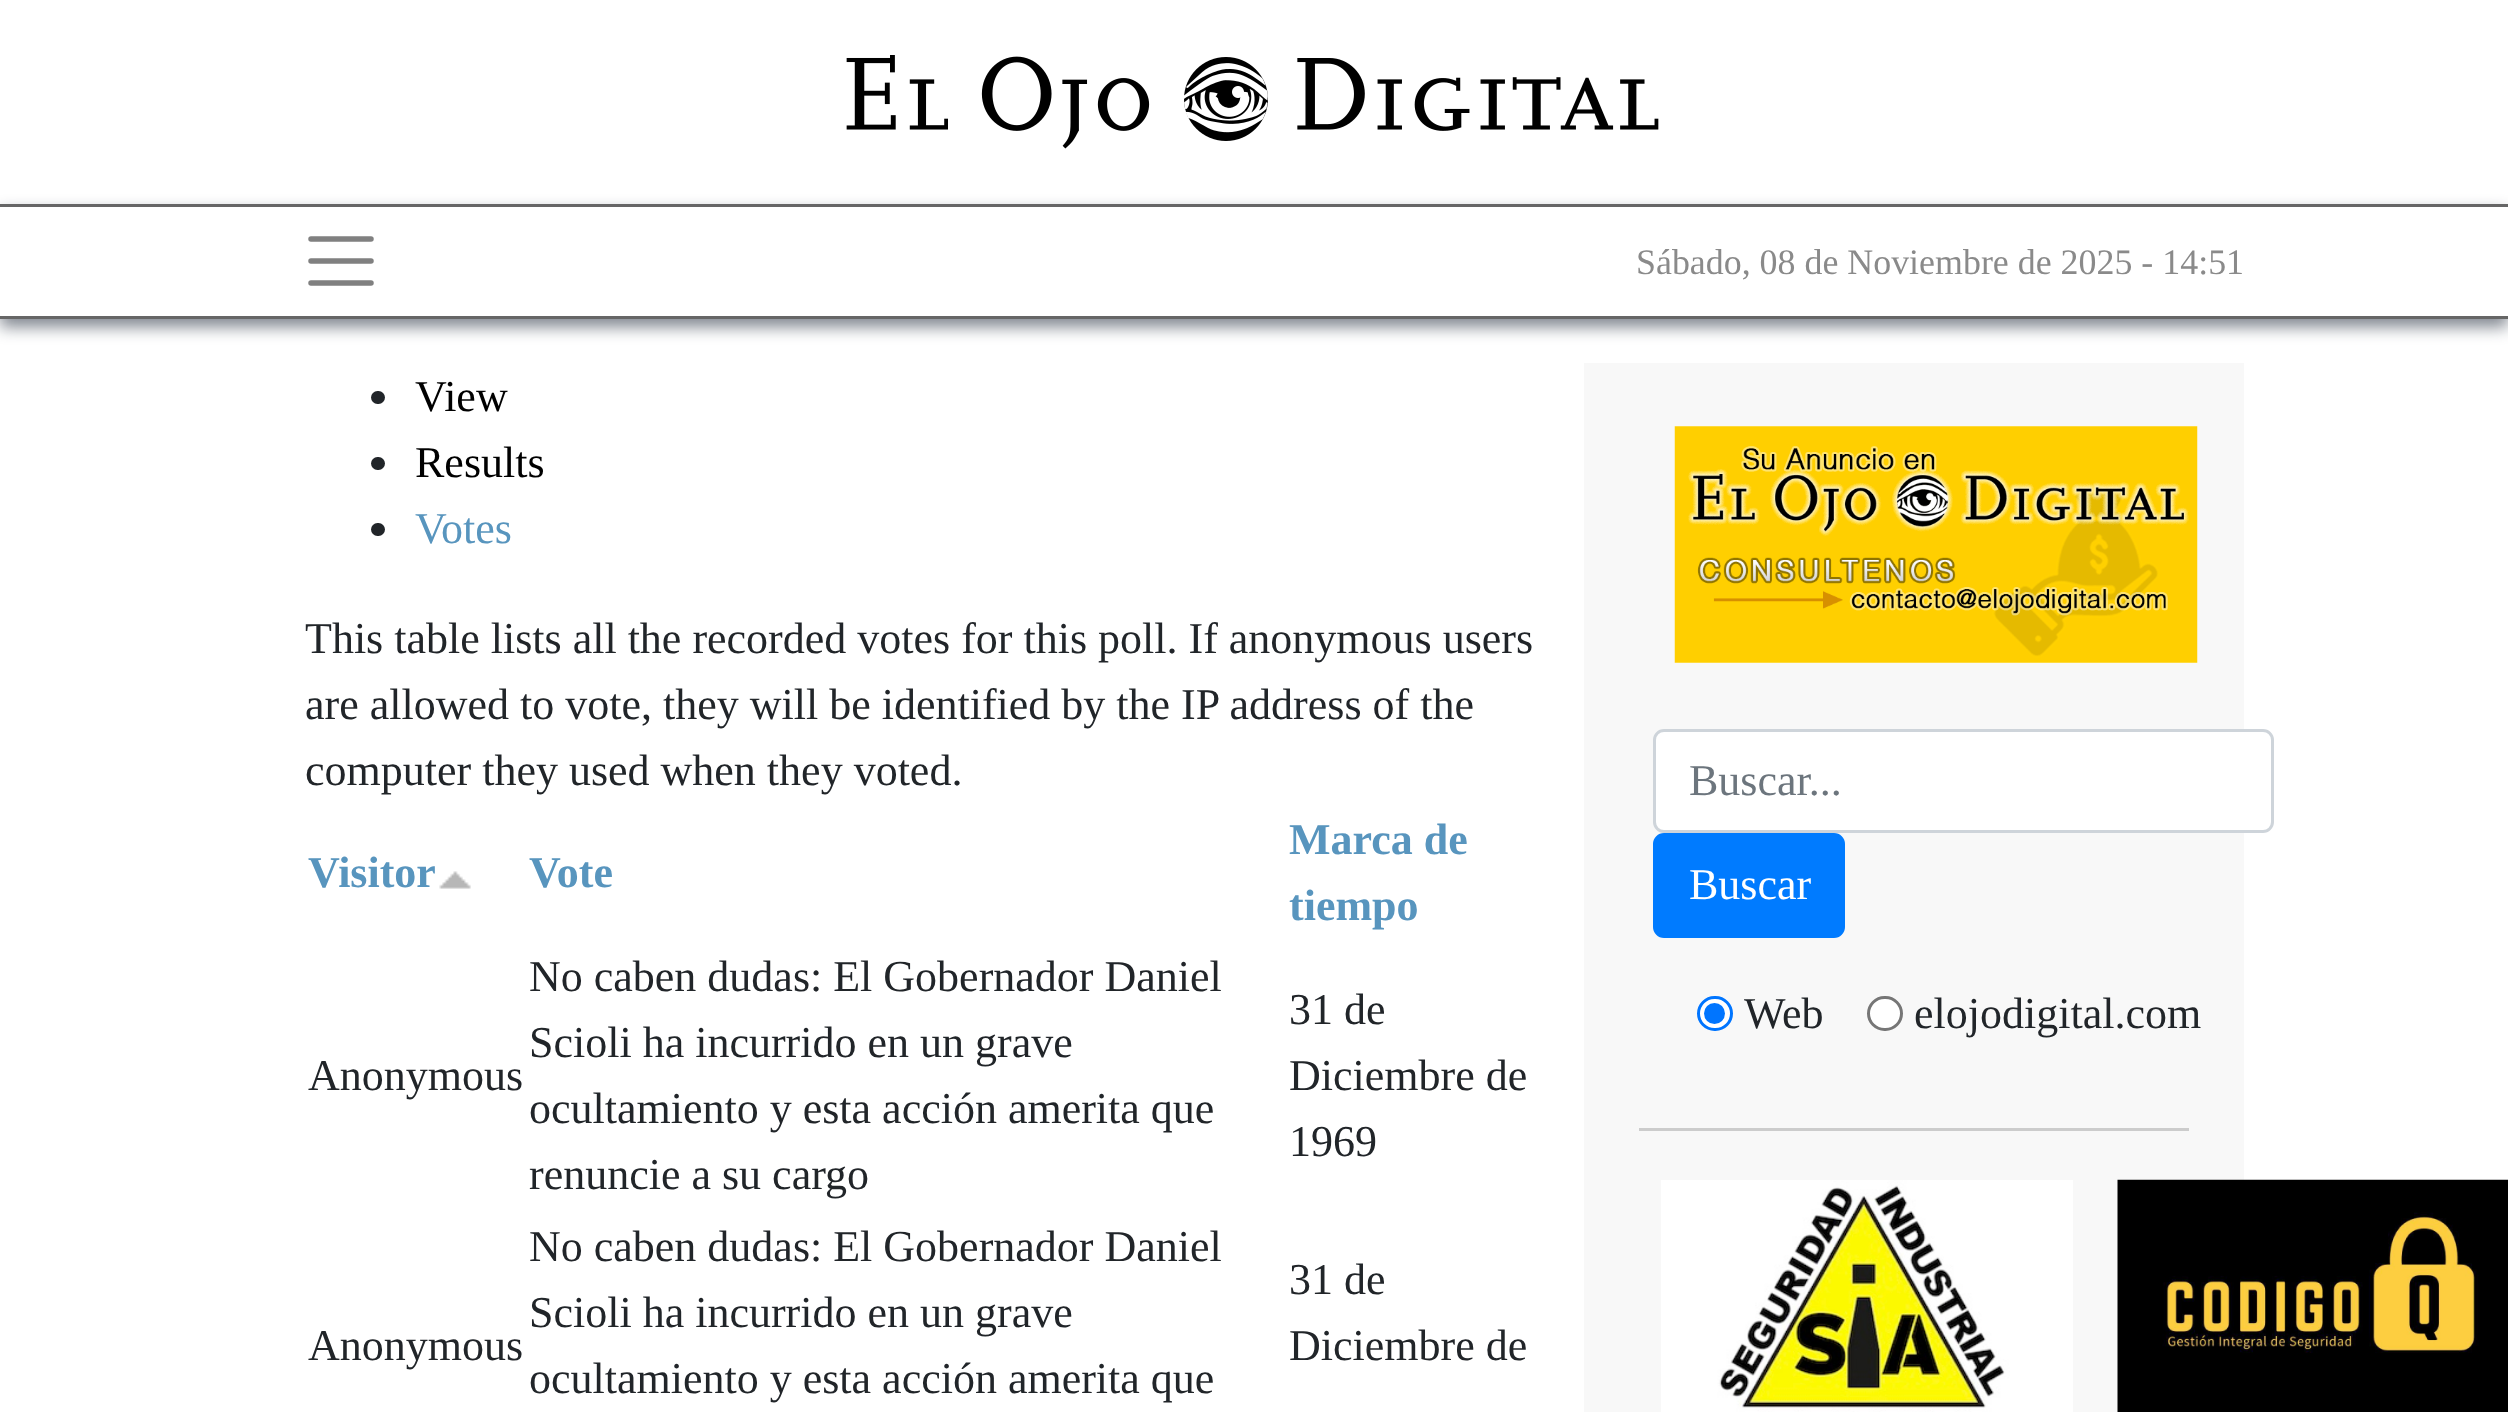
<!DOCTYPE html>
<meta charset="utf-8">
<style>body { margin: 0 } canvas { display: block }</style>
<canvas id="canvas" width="2508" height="1412"></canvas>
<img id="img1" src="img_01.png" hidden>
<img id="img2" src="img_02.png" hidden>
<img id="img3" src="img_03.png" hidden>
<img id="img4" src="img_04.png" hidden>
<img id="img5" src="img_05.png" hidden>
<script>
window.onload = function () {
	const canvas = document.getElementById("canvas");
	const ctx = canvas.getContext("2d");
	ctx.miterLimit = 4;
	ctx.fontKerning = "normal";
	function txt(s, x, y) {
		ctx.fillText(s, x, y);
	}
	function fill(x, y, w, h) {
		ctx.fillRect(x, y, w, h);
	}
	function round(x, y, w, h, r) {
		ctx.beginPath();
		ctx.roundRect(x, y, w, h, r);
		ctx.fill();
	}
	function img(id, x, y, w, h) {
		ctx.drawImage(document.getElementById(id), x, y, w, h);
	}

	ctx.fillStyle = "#FFFFFF";
	fill(0, 0, 2508, 1412);
	img("img1", 846, 55, 813, 94);
	ctx.save();
	ctx.beginPath();
	ctx.moveTo(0, 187);
	ctx.lineTo(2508, 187);
	ctx.lineTo(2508, 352);
	ctx.lineTo(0, 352);
	ctx.closePath();
	ctx.moveTo(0, 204);
	ctx.lineTo(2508, 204);
	ctx.lineTo(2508, 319);
	ctx.lineTo(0, 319);
	ctx.closePath();
	ctx.clip("evenodd");
	ctx.fillStyle = "rgba(3, 16, 34, 0.5)";
	ctx.filter = "blur(8px)";
	ctx.beginPath();
	ctx.rect(0, 212, 2508, 115);
	ctx.fill();
	ctx.filter = "none";
	ctx.restore();
	ctx.fillStyle = "#666666";
	fill(0, 204, 2508, 3);
	fill(0, 316, 2508, 3);
	ctx.beginPath();
	ctx.moveTo(311, 239);
	ctx.lineTo(371, 239);
	ctx.moveTo(311, 261);
	ctx.lineTo(371, 261);
	ctx.moveTo(311, 283);
	ctx.lineTo(371, 283);
	ctx.strokeStyle = "#808080";
	ctx.lineWidth = 5.5;
	ctx.lineCap = "round";
	ctx.stroke();
	ctx.fillStyle = "#212529";
	round(371, 391, 14, 13, 6.5);
	round(371, 457, 14, 13, 6.5);
	round(371, 523, 14, 13, 6.5);
	img("img2", 439, 871, 32, 18);
	ctx.fillStyle = "#F8F8F8";
	fill(1584, 363, 660, 1049);
	ctx.fillStyle = "#CCCCCC";
	fill(1639, 1128, 550, 3);
	img("img3", 1674, 426, 524, 237);
	ctx.fillStyle = "#FFFFFF";
	ctx.beginPath();
	ctx.roundRect(1654.5, 730.5, 618, 101, 9.5);
	ctx.fill();
	ctx.strokeStyle = "#CED4DA";
	ctx.lineWidth = 3;
	ctx.stroke();
	ctx.fillStyle = "#007BFF";
	ctx.beginPath();
	ctx.roundRect(1654.5, 834.5, 189, 102, 9.5);
	ctx.fill();
	ctx.strokeStyle = "#007BFF";
	ctx.stroke();
	ctx.fillStyle = "#FFFFFF";
	ctx.beginPath();
	ctx.roundRect(1698.5, 997.5, 33, 32, 16);
	ctx.fill();
	ctx.strokeStyle = "#0075FF";
	ctx.stroke();
	ctx.fillStyle = "#0075FF";
	ctx.beginPath();
	ctx.arc(1714.5, 1013.5, 10.5, 0, Math.PI * 2);
	ctx.fill();
	ctx.fillStyle = "#FFFFFF";
	ctx.beginPath();
	ctx.roundRect(1868.5, 997.5, 33, 32, 16);
	ctx.fill();
	ctx.strokeStyle = "#767676";
	ctx.stroke();
	img("img4", 1661, 1180, 412, 232);
	img("img5", 2117, 1179, 391, 233);
	ctx.font = "35.9px Liberation Serif";
	ctx.fillStyle = "#8A8A8A";
	txt("Sábado, 08 de Noviembre de 2025 - 14:51", 1636, 274);
	ctx.font = "44px Liberation Serif";
	ctx.fillStyle = "#000000";
	txt("View", 415, 411);
	txt("Results", 415, 477);
	ctx.fillStyle = "#5895BE";
	txt("Votes", 415, 543);
	ctx.fillStyle = "#212529";
	txt("This table lists all the recorded votes for this poll. If anonymous users", 305, 653);
	txt("are allowed to vote, they will be identified by the IP address of the", 305, 719);
	txt("computer they used when they voted.", 305, 785);
	ctx.font = "bold 44px Liberation Serif";
	ctx.fillStyle = "#5895BE";
	txt("Visitor", 308, 887);
	txt("Vote", 529, 887);
	txt("Marca de", 1289, 854);
	txt("tiempo", 1289, 920);
	ctx.font = "44px Liberation Serif";
	ctx.fillStyle = "#212529";
	txt("Anonymous", 308, 1090);
	txt("No caben dudas: El Gobernador Daniel", 529, 991);
	txt("Scioli ha incurrido en un grave", 529, 1057);
	txt("ocultamiento y esta acción amerita que", 529, 1123);
	txt("renuncie a su cargo", 529, 1189);
	txt("31 de", 1289, 1024);
	txt("Diciembre de", 1289, 1090);
	txt("1969", 1289, 1156);
	txt("Anonymous", 308, 1360);
	txt("No caben dudas: El Gobernador Daniel", 529, 1261);
	txt("Scioli ha incurrido en un grave", 529, 1327);
	txt("ocultamiento y esta acción amerita que", 529, 1393);
	txt("31 de", 1289, 1294);
	txt("Diciembre de", 1289, 1360);
	ctx.fillStyle = "#6C757D";
	txt("Buscar...", 1689, 795);
	ctx.fillStyle = "#FFFFFF";
	txt("Buscar", 1689, 899);
	ctx.fillStyle = "#212529";
	txt("Web", 1744, 1028);
	txt("elojodigital.com", 1914, 1028);
};
</script>
